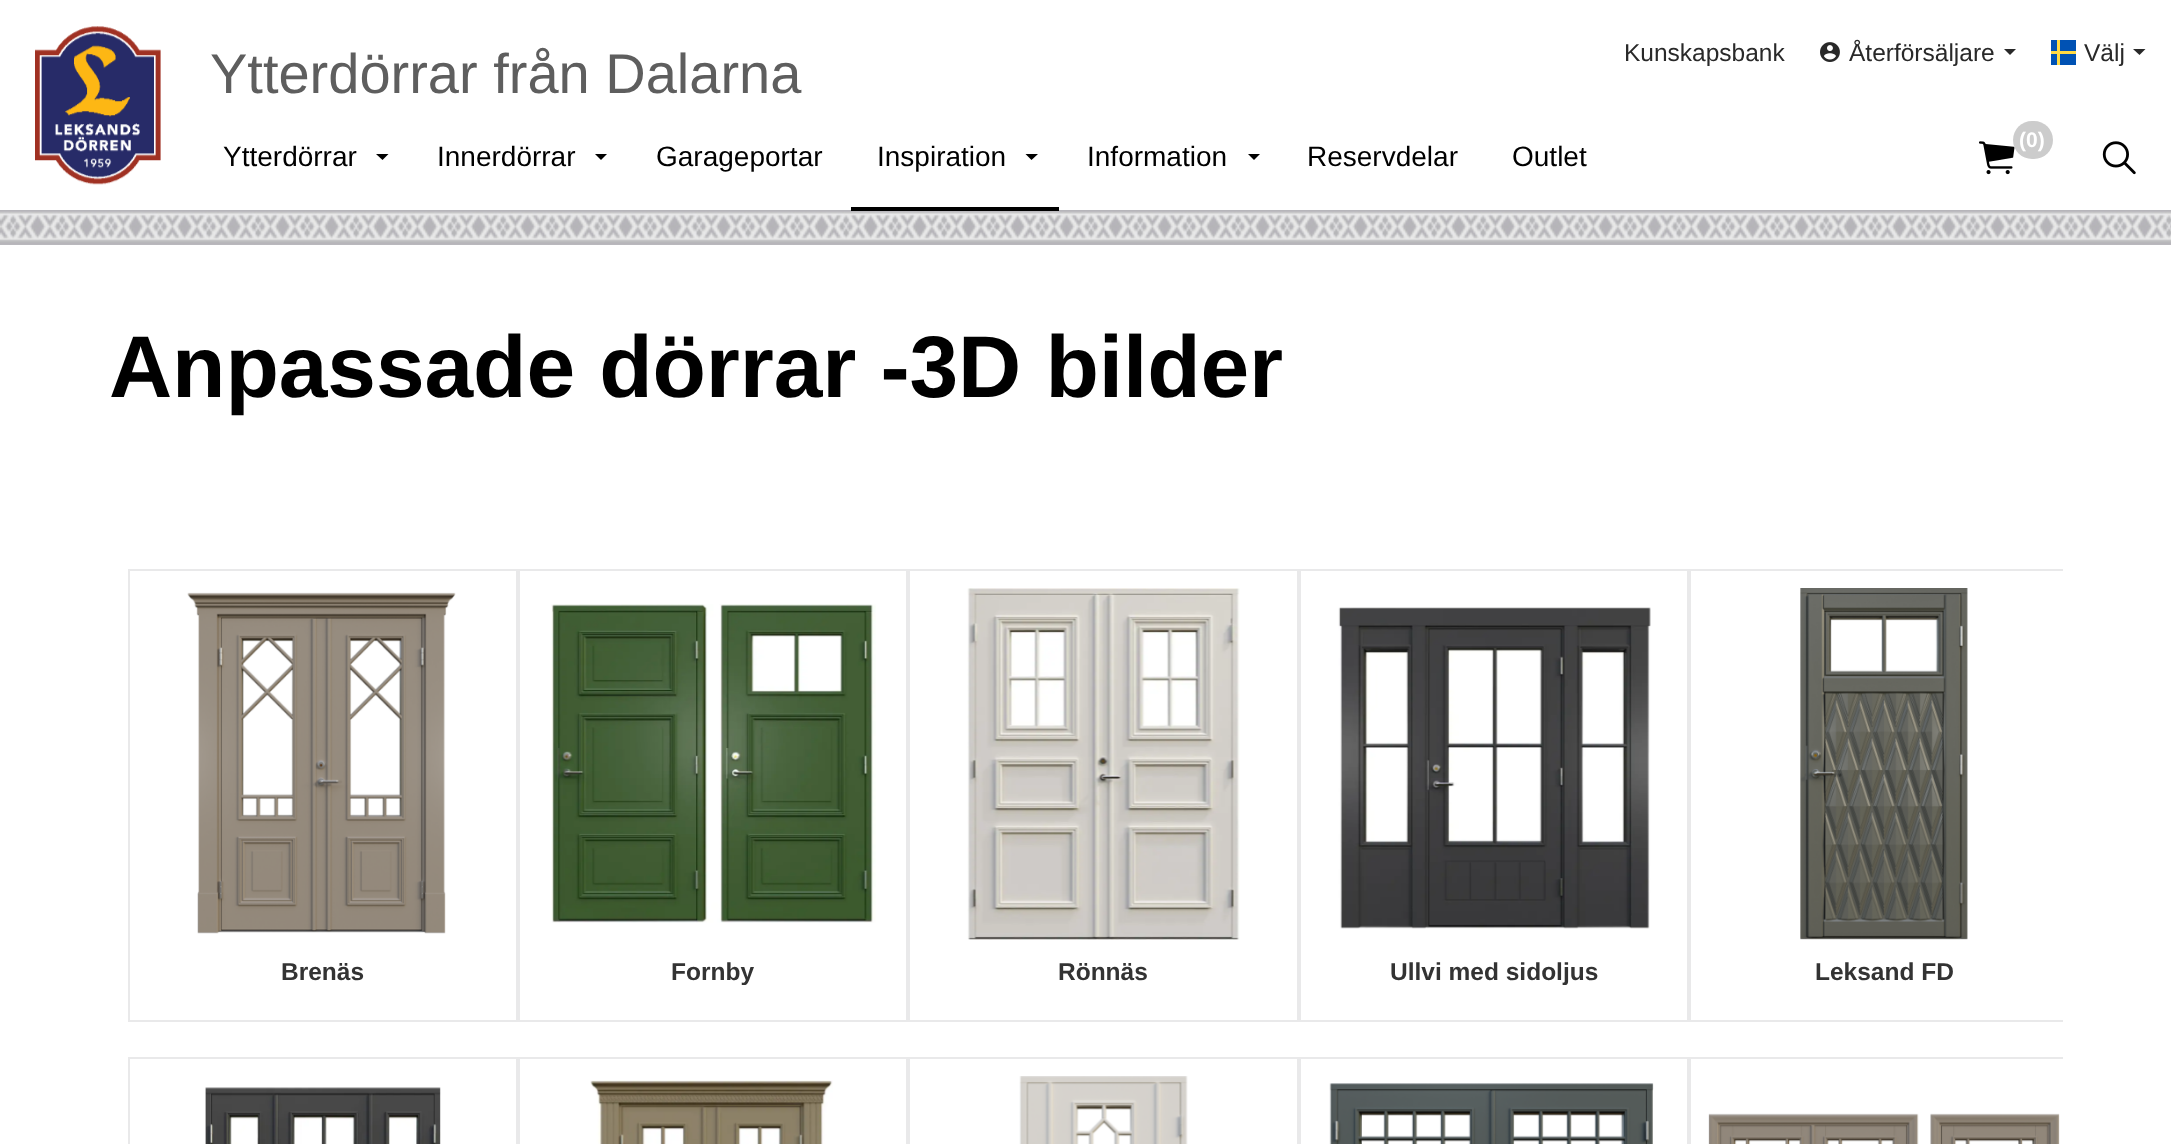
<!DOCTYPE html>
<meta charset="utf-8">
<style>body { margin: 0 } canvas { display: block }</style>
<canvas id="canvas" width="2171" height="1144"></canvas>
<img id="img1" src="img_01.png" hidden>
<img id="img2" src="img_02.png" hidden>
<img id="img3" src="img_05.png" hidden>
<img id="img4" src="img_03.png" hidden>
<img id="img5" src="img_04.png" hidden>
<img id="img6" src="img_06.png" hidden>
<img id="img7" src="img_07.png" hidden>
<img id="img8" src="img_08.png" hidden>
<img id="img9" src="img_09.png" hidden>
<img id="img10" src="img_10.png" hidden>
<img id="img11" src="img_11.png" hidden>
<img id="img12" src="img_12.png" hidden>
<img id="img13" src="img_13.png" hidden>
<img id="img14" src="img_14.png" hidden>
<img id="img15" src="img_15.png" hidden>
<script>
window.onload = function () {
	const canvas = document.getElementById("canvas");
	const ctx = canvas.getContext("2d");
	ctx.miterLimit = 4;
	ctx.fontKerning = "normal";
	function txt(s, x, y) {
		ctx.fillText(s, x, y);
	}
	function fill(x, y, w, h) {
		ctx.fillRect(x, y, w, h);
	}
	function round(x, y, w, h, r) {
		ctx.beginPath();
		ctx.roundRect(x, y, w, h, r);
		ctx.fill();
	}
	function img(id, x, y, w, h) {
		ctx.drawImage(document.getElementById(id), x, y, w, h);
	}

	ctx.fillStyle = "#FFFFFF";
	fill(0, 0, 2171, 1144);
	img("img1", 35, 26, 126, 159);
	img("img2", 1820, 42, 20, 20);
	ctx.fillStyle = "#292929";
	ctx.beginPath();
	ctx.moveTo(2004, 49);
	ctx.lineTo(2016, 49);
	ctx.lineTo(2010, 55);
	ctx.closePath();
	ctx.fill();
	ctx.fillStyle = "#0052B4";
	fill(2051, 40, 25, 25);
	ctx.fillStyle = "#FFDA44";
	fill(2057, 40, 3, 25);
	fill(2051, 51, 25, 3);
	ctx.fillStyle = "#292929";
	ctx.beginPath();
	ctx.moveTo(2133, 49);
	ctx.lineTo(2145.5, 49);
	ctx.lineTo(2139.5, 55);
	ctx.closePath();
	ctx.fill();
	ctx.fillStyle = "#000000";
	ctx.beginPath();
	ctx.moveTo(376, 154);
	ctx.lineTo(388.5, 154);
	ctx.lineTo(382.5, 160);
	ctx.closePath();
	ctx.fill();
	ctx.beginPath();
	ctx.moveTo(595, 154);
	ctx.lineTo(607, 154);
	ctx.lineTo(601, 160);
	ctx.closePath();
	ctx.fill();
	ctx.beginPath();
	ctx.moveTo(1025.5, 154);
	ctx.lineTo(1038, 154);
	ctx.lineTo(1031.5, 160);
	ctx.closePath();
	ctx.fill();
	img("img3", 0, 210, 2171, 35);
	fill(851, 207, 208, 4);
	ctx.beginPath();
	ctx.moveTo(1248, 154);
	ctx.lineTo(1260, 154);
	ctx.lineTo(1254, 160);
	ctx.closePath();
	ctx.fill();
	img("img4", 1979, 141, 36, 34);
	ctx.fillStyle = "#CCCCCC";
	round(2013, 121, 40, 38, 19);
	img("img5", 2102, 141, 34, 34);
	ctx.strokeStyle = "#E9E9EA";
	ctx.lineWidth = 2;
	ctx.strokeRect(129, 570, 388, 451);
	img("img6", 187, 592, 269, 342);
	ctx.strokeRect(519, 570, 388, 451);
	img("img7", 551, 604, 325, 319);
	ctx.strokeRect(909, 570, 389, 451);
	img("img8", 967, 588, 273, 352);
	ctx.strokeRect(1300, 570, 388, 451);
	img("img9", 1338, 607, 313, 322);
	ctx.save();
	ctx.beginPath();
	ctx.rect(110, 551, 1953, 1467);
	ctx.clip();
	ctx.strokeRect(1690, 570, 388, 451);
	ctx.restore();
	img("img10", 1800, 588, 168, 352);
	ctx.strokeRect(129, 1058, 388, 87);
	img("img11", 205, 1087, 236, 57);
	ctx.strokeRect(519, 1058, 388, 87);
	img("img12", 590, 1080, 243, 64);
	ctx.strokeRect(909, 1058, 389, 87);
	img("img13", 1019, 1076, 169, 68);
	ctx.strokeRect(1300, 1058, 388, 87);
	img("img14", 1329, 1083, 325, 61);
	ctx.save();
	ctx.beginPath();
	ctx.rect(110, 551, 1953, 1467);
	ctx.clip();
	ctx.strokeRect(1690, 1058, 388, 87);
	ctx.restore();
	img("img15", 1708, 1113, 352, 31);
	ctx.font = "56px Liberation Sans";
	ctx.fillStyle = "#5E5E5E";
	txt("Ytterdörrar från Dalarna", 210, 93);
	ctx.font = "24.5px Liberation Sans";
	ctx.fillStyle = "#292929";
	txt("Kunskapsbank", 1624, 61);
	txt("Återförsäljare", 1849, 61);
	txt("Välj", 2084, 61);
	ctx.font = "28px Liberation Sans";
	ctx.fillStyle = "#000000";
	txt("Ytterdörrar", 223, 166);
	txt("Innerdörrar", 437, 166);
	txt("Garageportar", 656, 166);
	txt("Inspiration", 877, 166);
	txt("Information", 1087, 166);
	txt("Reservdelar", 1307, 166);
	txt("Outlet", 1512, 166);
	ctx.font = "bold 21px Liberation Sans";
	ctx.fillStyle = "#FFFFFF";
	txt("(0)", 2019, 147);
	ctx.letterSpacing = "-0.1px";
	ctx.font = "bold 87.5px Liberation Sans";
	ctx.fillStyle = "#000000";
	txt("Anpassade dörrar -3D bilder", 109, 397);
	ctx.letterSpacing = "0px";
	ctx.font = "bold 24.5px Liberation Sans";
	ctx.fillStyle = "#333333";
	txt("Brenäs", 281, 980);
	txt("Fornby", 671, 980);
	txt("Rönnäs", 1058, 980);
	txt("Ullvi med sidoljus", 1390, 980);
	txt("Leksand FD", 1815, 980);
};
</script>
